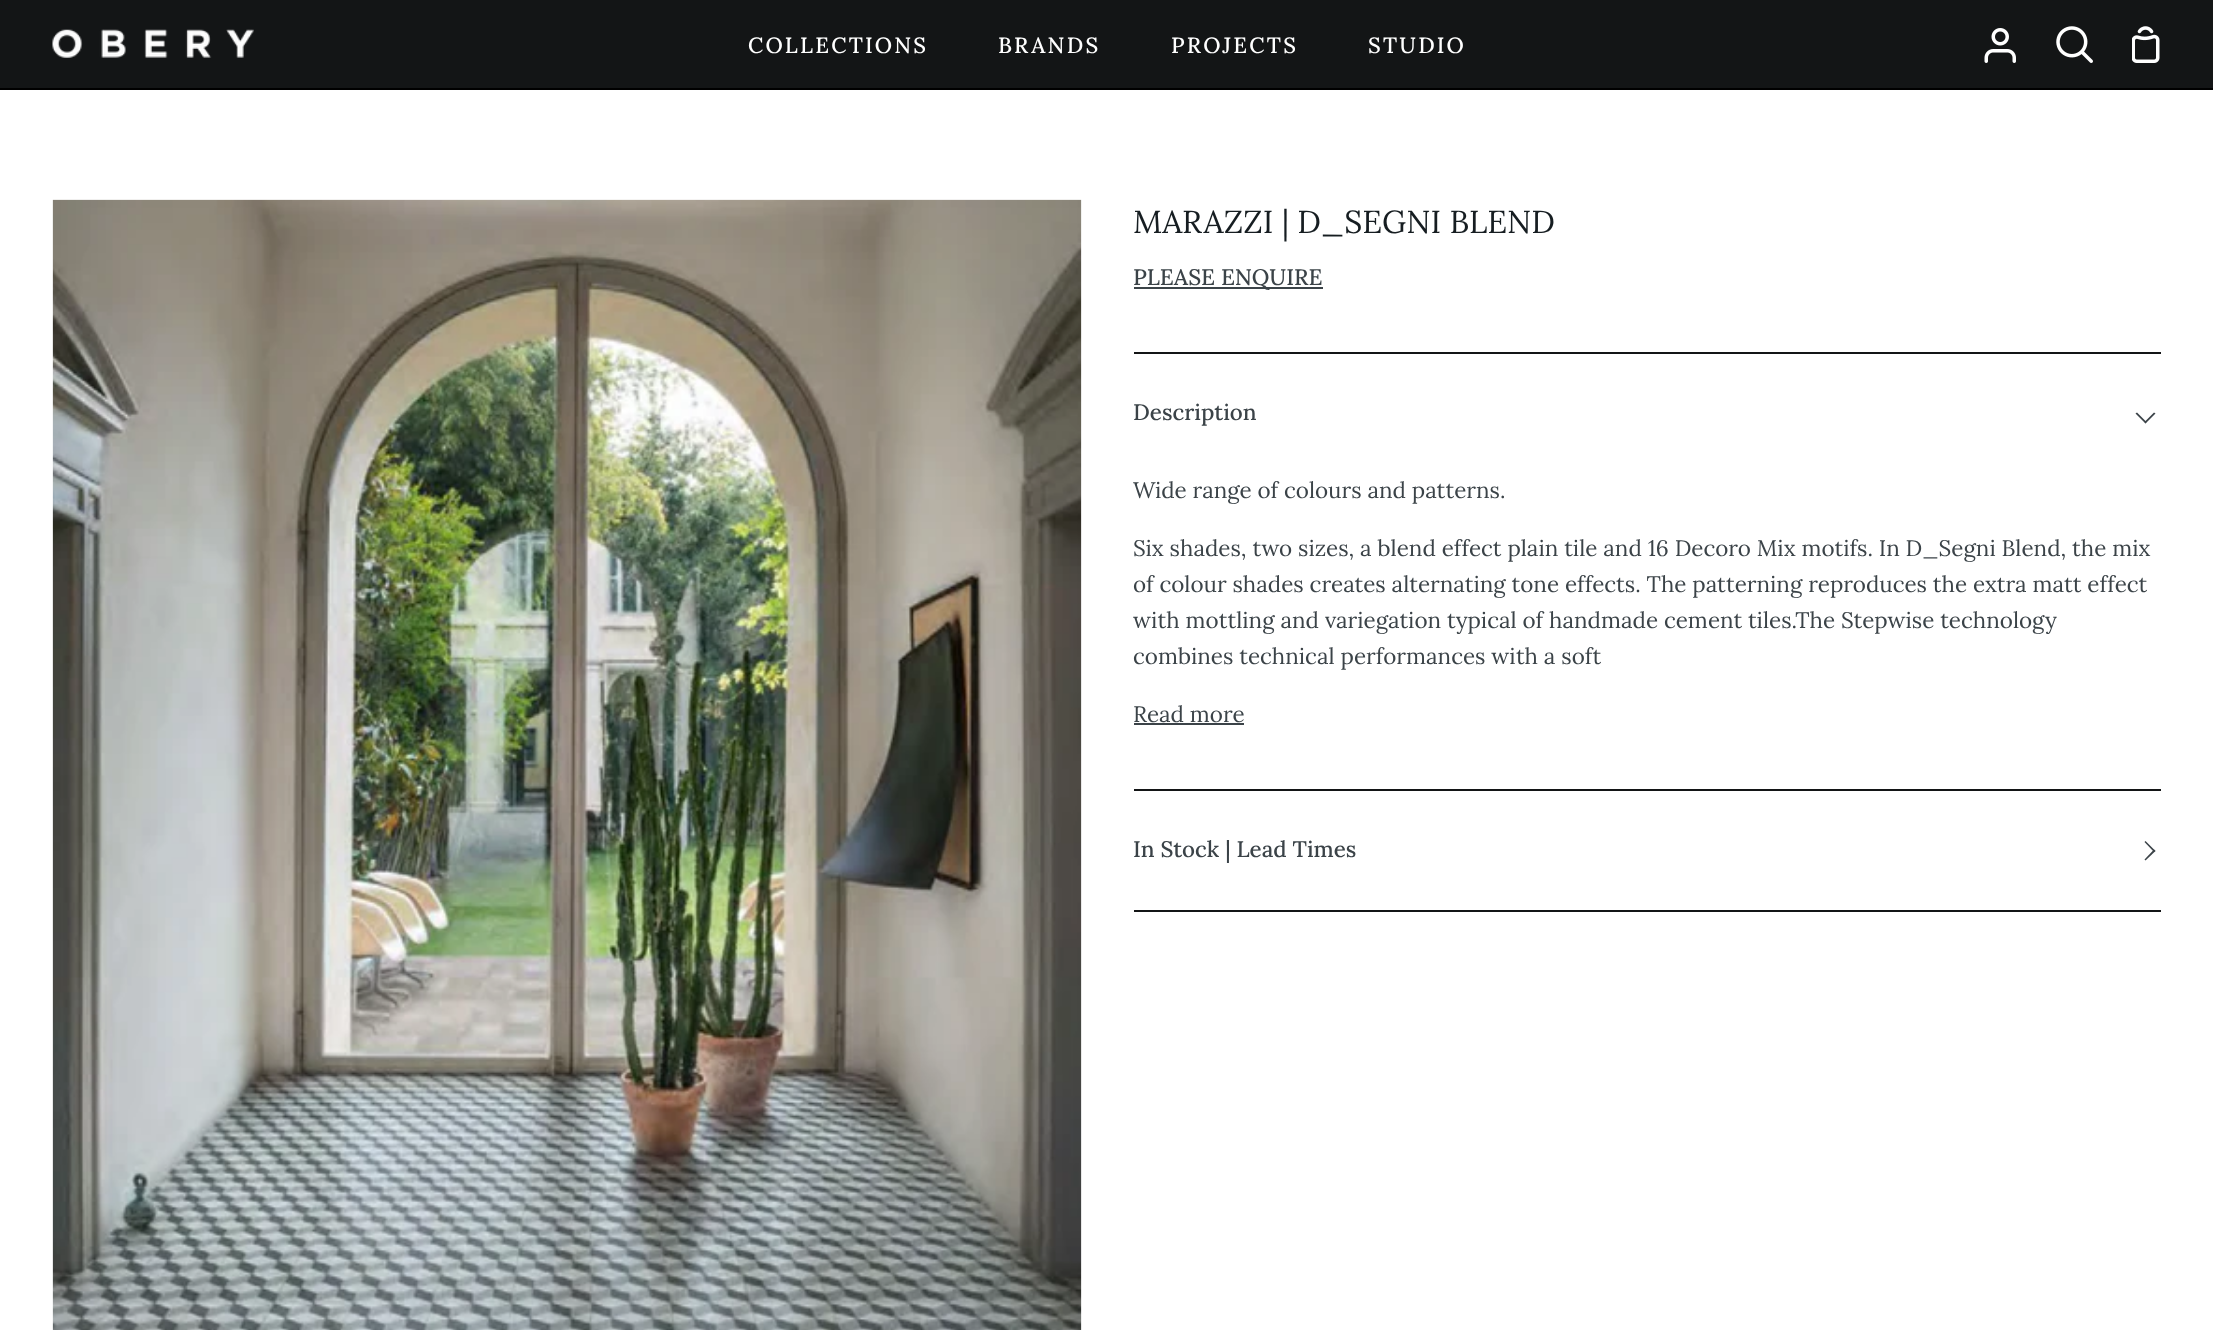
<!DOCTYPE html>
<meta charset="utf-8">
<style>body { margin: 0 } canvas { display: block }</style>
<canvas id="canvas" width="2213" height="1330"></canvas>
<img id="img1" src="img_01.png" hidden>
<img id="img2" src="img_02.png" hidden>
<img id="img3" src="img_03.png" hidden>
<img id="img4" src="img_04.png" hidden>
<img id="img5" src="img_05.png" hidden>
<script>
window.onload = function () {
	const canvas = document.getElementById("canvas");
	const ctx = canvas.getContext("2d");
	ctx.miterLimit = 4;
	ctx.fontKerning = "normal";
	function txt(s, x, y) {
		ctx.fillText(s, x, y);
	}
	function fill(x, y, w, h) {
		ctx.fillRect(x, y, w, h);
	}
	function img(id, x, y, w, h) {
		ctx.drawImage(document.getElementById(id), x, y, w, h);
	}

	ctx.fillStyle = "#FFFFFF";
	fill(0, 0, 2213, 1330);
	ctx.fillStyle = "#000000";
	fill(0, 88, 2213, 2);
	ctx.fillStyle = "#131516";
	fill(0, 0, 2213, 88);
	img("img1", 52, 29, 202, 29);
	img("img2", 1984, 28, 32, 35);
	img("img3", 2056, 26, 37, 37);
	img("img4", 2132, 26, 28, 37);
	img("img5", 52, 199, 1030, 1131);
	ctx.fillStyle = "#3B4348";
	fill(1134, 287, 189, 2);
	ctx.fillStyle = "#131516";
	fill(1134, 352, 1027, 2);
	fill(1134, 789, 1027, 2);
	ctx.fillStyle = "#3B4348";
	ctx.beginPath();
	ctx.moveTo(2144.5, 422);
	ctx.lineTo(2154, 412.5);
	ctx.lineTo(2155.5, 413.5);
	ctx.lineTo(2145.5, 423.5);
	ctx.closePath();
	ctx.fill();
	ctx.beginPath();
	ctx.moveTo(2135.5, 413.5);
	ctx.lineTo(2137, 412.5);
	ctx.lineTo(2146.5, 422);
	ctx.lineTo(2145.5, 423.5);
	ctx.closePath();
	ctx.fill();
	fill(1134, 723, 110, 2);
	ctx.fillStyle = "#131516";
	fill(1134, 910, 1027, 2);
	ctx.fillStyle = "#3B4348";
	ctx.beginPath();
	ctx.moveTo(2154, 852);
	ctx.lineTo(2144.5, 842);
	ctx.lineTo(2145.5, 841);
	ctx.lineTo(2155.5, 851);
	ctx.closePath();
	ctx.fill();
	ctx.beginPath();
	ctx.moveTo(2145.5, 860.5);
	ctx.lineTo(2144.5, 859.5);
	ctx.lineTo(2154, 849.5);
	ctx.lineTo(2155.5, 851);
	ctx.closePath();
	ctx.fill();
	ctx.letterSpacing = "2.25px";
	ctx.font = "500 22px Lora";
	ctx.fillStyle = "#FFFFFF";
	txt("COLLECTIONS", 748, 53);
	txt("BRANDS", 998, 53);
	txt("PROJECTS", 1171, 53);
	txt("STUDIO", 1368, 53);
	ctx.letterSpacing = "0px";
	ctx.font = "31.8px Lora";
	ctx.fillStyle = "#161D21";
	txt("MARAZZI | D_SEGNI BLEND", 1133, 233);
	ctx.font = "500 22.4px Lora";
	ctx.fillStyle = "#3B4348";
	txt("PLEASE ENQUIRE", 1133, 285);
	txt("Description", 1133, 420);
	ctx.font = "22.4px Lora";
	txt("Wide range of colours and patterns.", 1133, 498);
	txt("Six shades, two sizes, a blend effect plain tile and 16 Decoro Mix motifs. In D_Segni Blend, the mix", 1133, 556);
	txt("of colour shades creates alternating tone effects. The patterning reproduces the extra matt effect", 1133, 592);
	txt("with mottling and variegation typical of handmade cement tiles.The Stepwise technology", 1133, 628);
	txt("combines technical performances with a soft", 1133, 664);
	txt("Read more", 1133, 722);
	ctx.font = "500 22.4px Lora";
	txt("In Stock | Lead Times", 1133, 857);
};
</script>
